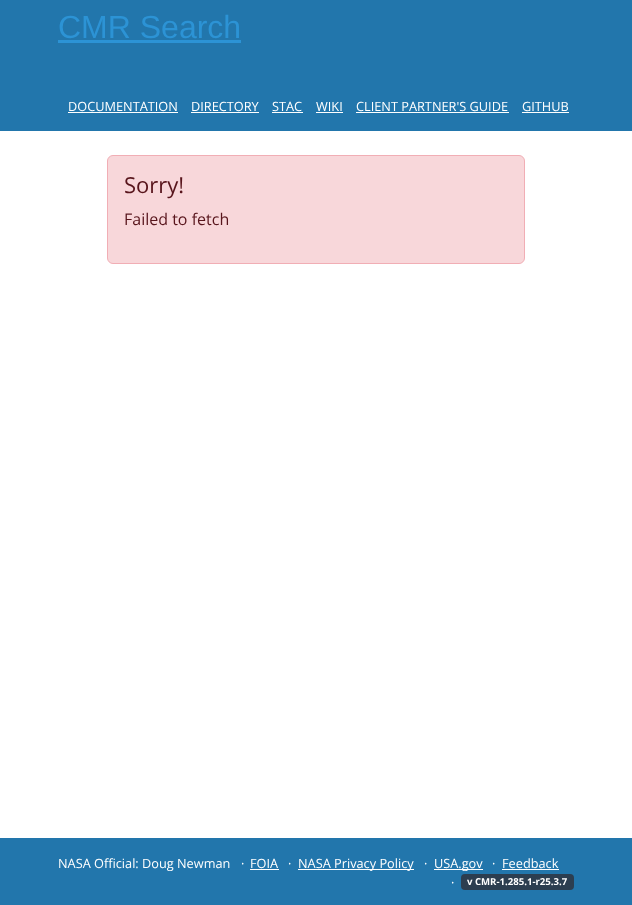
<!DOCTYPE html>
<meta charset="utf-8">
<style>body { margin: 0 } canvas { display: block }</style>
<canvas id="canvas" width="632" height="905"></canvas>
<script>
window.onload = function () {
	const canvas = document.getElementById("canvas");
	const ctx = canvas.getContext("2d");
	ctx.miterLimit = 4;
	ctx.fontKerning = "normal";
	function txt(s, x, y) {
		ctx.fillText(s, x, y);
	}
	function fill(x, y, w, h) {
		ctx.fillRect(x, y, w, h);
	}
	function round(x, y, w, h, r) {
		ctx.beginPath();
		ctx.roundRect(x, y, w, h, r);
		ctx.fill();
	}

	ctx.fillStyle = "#FFFFFF";
	fill(0, 0, 632, 905);
	ctx.fillStyle = "#2276AC";
	fill(0, 0, 632, 131);
	ctx.fillStyle = "#2C93D5";
	fill(58, 40, 183, 3);
	ctx.fillStyle = "#FFFFFF";
	fill(68, 112, 110, 1);
	fill(191, 112, 68, 1);
	fill(272, 112, 31, 1);
	fill(316, 112, 27, 1);
	fill(356, 112, 153, 1);
	fill(522, 112, 47, 1);
	ctx.fillStyle = "#F8D7DA";
	ctx.beginPath();
	ctx.roundRect(107.5, 155.5, 417, 108, 5.5);
	ctx.fill();
	ctx.strokeStyle = "#F1AEB5";
	ctx.stroke();
	ctx.fillStyle = "#2276AC";
	fill(0, 838, 632, 67);
	ctx.fillStyle = "#FFFFFF";
	fill(250, 869, 29, 1);
	fill(298, 869, 116, 1);
	fill(434, 869, 49, 1);
	fill(502, 869, 57, 1);
	ctx.fillStyle = "#2C3E50";
	round(461, 874, 113, 16, 4);
	ctx.font = "32px Liberation Sans";
	ctx.fillStyle = "#2C93D5";
	txt("CMR Search", 58, 38);
	ctx.font = "12.75px Open Sans";
	ctx.fillStyle = "#FFFFFF";
	txt("DOCUMENTATION", 68, 111);
	txt("DIRECTORY", 191, 111);
	txt("STAC", 272, 111);
	txt("WIKI", 316, 111);
	txt("CLIENT PARTNER'S GUIDE", 356, 111);
	txt("GITHUB", 522, 111);
	ctx.font = "22px Open Sans";
	ctx.fillStyle = "#58151C";
	txt("Sorry!", 124, 193);
	ctx.font = "16px Open Sans";
	txt("Failed to fetch", 124, 225);
	ctx.font = "12.75px Open Sans";
	ctx.fillStyle = "#FFFFFF";
	txt("NASA Official: Doug Newman", 58, 868);
	txt("·", 241, 868);
	txt("FOIA", 250, 868);
	txt("·", 288, 868);
	txt("NASA Privacy Policy", 298, 868);
	txt("·", 424, 868);
	txt("USA.gov", 434, 868);
	txt("·", 492, 868);
	txt("Feedback", 502, 868);
	txt("·", 451, 887);
	ctx.font = "bold 9.6px Open Sans";
	txt("v CMR-1.285.1-r25.3.7", 467, 885);
};
</script>
